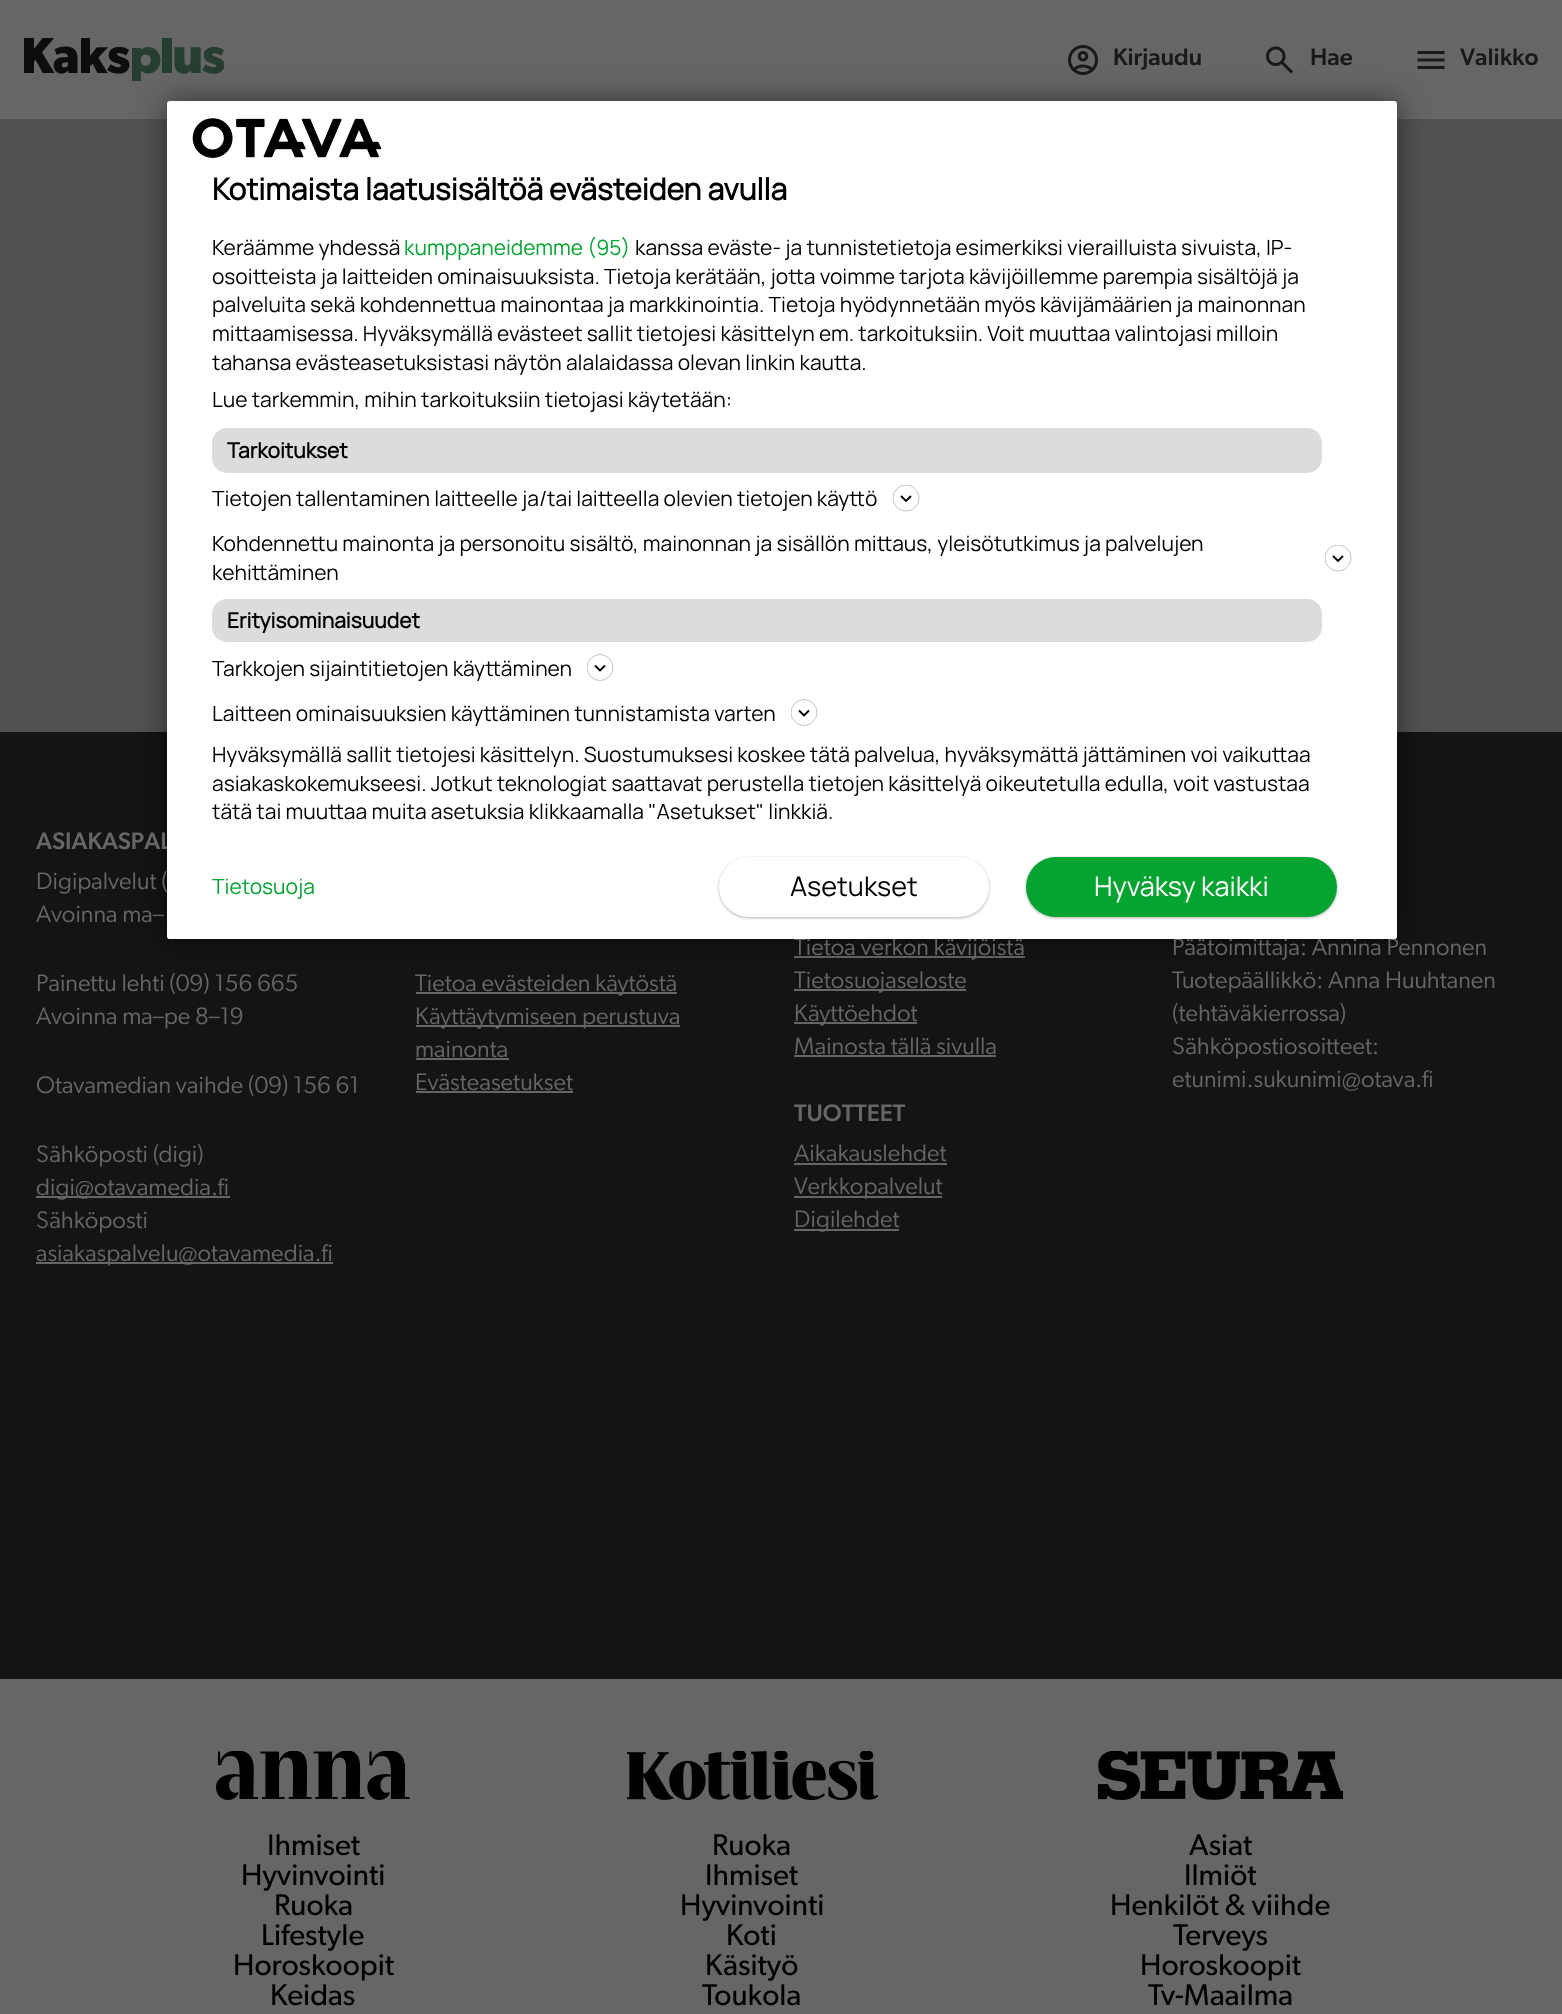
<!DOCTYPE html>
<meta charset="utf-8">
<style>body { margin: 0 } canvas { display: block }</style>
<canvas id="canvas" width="1562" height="2014"></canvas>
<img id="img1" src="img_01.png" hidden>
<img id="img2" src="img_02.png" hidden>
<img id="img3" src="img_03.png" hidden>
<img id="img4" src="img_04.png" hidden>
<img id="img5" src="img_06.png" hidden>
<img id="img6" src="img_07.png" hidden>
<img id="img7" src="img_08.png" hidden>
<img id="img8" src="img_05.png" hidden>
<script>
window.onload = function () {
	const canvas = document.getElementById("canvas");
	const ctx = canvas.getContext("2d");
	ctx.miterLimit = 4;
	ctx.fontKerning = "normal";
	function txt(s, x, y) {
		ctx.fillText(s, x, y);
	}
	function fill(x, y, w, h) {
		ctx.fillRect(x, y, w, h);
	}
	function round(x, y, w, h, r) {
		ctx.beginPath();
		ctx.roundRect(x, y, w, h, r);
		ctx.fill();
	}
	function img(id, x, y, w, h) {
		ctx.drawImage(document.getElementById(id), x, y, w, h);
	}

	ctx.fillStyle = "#141414";
	fill(0, 0, 1562, 2014);
	ctx.fillStyle = "#666666";
	fill(0, 0, 1562, 119);
	img("img1", 24, 38, 200, 43);
	img("img2", 1068, 45, 30, 30);
	img("img3", 1266, 46, 27, 28);
	img("img4", 1417, 51, 28, 18);
	ctx.fillStyle = "#545250";
	fill(0, 119, 1562, 613);
	ctx.fillStyle = "#666666";
	fill(794, 956, 231, 2);
	ctx.fillStyle = "rgba(0, 0, 0, 0.5)";
	ctx.filter = "blur(15px)";
	ctx.beginPath();
	ctx.roundRect(167, 101, 1230, 838, 3);
	ctx.fill();
	ctx.filter = "none";
	ctx.fillStyle = "#666666";
	fill(36, 1196, 194, 2);
	fill(36, 1262, 297, 2);
	fill(416, 992, 261, 2);
	fill(416, 1025, 264, 2);
	fill(416, 1058, 93, 2);
	fill(416, 1091, 157, 2);
	fill(794, 989, 172, 2);
	fill(794, 1022, 123, 2);
	fill(794, 1055, 202, 2);
	fill(794, 1163, 153, 2);
	fill(794, 1196, 148, 2);
	fill(794, 1229, 105, 2);
	fill(0, 1679, 1562, 335);
	img("img5", 216, 1751, 194, 49);
	img("img6", 627, 1751, 251, 49);
	img("img7", 1098, 1751, 245, 49);
	ctx.font = "500 24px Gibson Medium";
	ctx.fillStyle = "#191919";
	txt("Kirjaudu", 1113, 65);
	txt("Hae", 1310, 65);
	txt("Valikko", 1460, 65);
	ctx.fillStyle = "#666666";
	txt("ASIAKASPAL", 36, 849);
	ctx.font = "24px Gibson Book";
	txt("Digipalvelut (", 36, 889);
	txt("Avoinna ma–", 36, 922);
	txt("Painettu lehti (09) 156 665", 36, 991);
	txt("Avoinna ma–pe 8–19", 36, 1024);
	txt("Otavamedian vaihde (09) 156 61", 36, 1093);
	txt("Sähköposti (digi)", 36, 1162);
	txt("digi@otavamedia.fi", 36, 1195);
	txt("Sähköposti", 36, 1228);
	txt("asiakaspalvelu@otavamedia.fi", 36, 1261);
	txt("Tietoa evästeiden käytöstä", 415, 991);
	txt("Käyttäytymiseen perustuva", 415, 1024);
	txt("mainonta", 415, 1057);
	txt("Evästeasetukset", 415, 1090);
	txt("Tietoa verkon kävijöistä", 794, 955);
	txt("Tietosuojaseloste", 794, 988);
	txt("Käyttöehdot", 794, 1021);
	txt("Mainosta tällä sivulla", 794, 1054);
	ctx.font = "500 24px Gibson Medium";
	txt("TUOTTEET", 794, 1121);
	ctx.font = "24px Gibson Book";
	txt("Aikakauslehdet", 794, 1161);
	txt("Verkkopalvelut", 794, 1194);
	txt("Digilehdet", 794, 1227);
	txt("Päätoimittaja: Annina Pennonen", 1172, 955);
	ctx.fillStyle = "#FFFFFF";
	round(167, 101, 1230, 838, 3);
	ctx.fillStyle = "#DCDCDC";
	round(212, 599, 1110, 43, 15);
	ctx.font = "bold 21px Manrope";
	ctx.fillStyle = "#000000";
	txt("Erityisominaisuudet", 227, 628);
	ctx.fillStyle = "#DCDCDC";
	round(212, 428, 1110, 45, 15);
	ctx.fillStyle = "#000000";
	txt("Tarkoitukset", 227, 458);
	ctx.beginPath();
	ctx.moveTo(799, 710.5);
	ctx.lineTo(804, 715.5);
	ctx.lineTo(809, 710.5);
	ctx.strokeStyle = "#000000";
	ctx.lineWidth = 1.9;
	ctx.stroke();
	ctx.save();
	ctx.beginPath();
	ctx.rect(791, 699, 27, 27);
	ctx.clip();
	ctx.beginPath();
	ctx.arc(804, 712.5, 13, 0, Math.PI * 2);
	ctx.strokeStyle = "#C4C4C4";
	ctx.lineWidth = 1;
	ctx.stroke();
	ctx.restore();
	ctx.beginPath();
	ctx.moveTo(595, 665.5);
	ctx.lineTo(600, 670.5);
	ctx.lineTo(605, 665.5);
	ctx.stroke();
	ctx.save();
	ctx.beginPath();
	ctx.rect(587, 654, 27, 27);
	ctx.clip();
	ctx.beginPath();
	ctx.arc(600, 667.5, 13, 0, Math.PI * 2);
	ctx.strokeStyle = "#C4C4C4";
	ctx.lineWidth = 1;
	ctx.stroke();
	ctx.restore();
	ctx.beginPath();
	ctx.moveTo(1333, 556);
	ctx.lineTo(1338, 561);
	ctx.lineTo(1343, 556);
	ctx.stroke();
	ctx.save();
	ctx.beginPath();
	ctx.rect(1325, 545, 27, 27);
	ctx.clip();
	ctx.beginPath();
	ctx.arc(1338, 558, 13, 0, Math.PI * 2);
	ctx.strokeStyle = "#C4C4C4";
	ctx.lineWidth = 1;
	ctx.stroke();
	ctx.restore();
	ctx.beginPath();
	ctx.moveTo(901, 496);
	ctx.lineTo(906, 501);
	ctx.lineTo(911, 496);
	ctx.stroke();
	ctx.save();
	ctx.beginPath();
	ctx.rect(893, 485, 27, 27);
	ctx.clip();
	ctx.beginPath();
	ctx.arc(906, 498, 13, 0, Math.PI * 2);
	ctx.strokeStyle = "#C4C4C4";
	ctx.lineWidth = 1;
	ctx.stroke();
	ctx.restore();
	ctx.fillStyle = "#FFFFFF";
	ctx.beginPath();
	ctx.roundRect(167, 834, 1230, 105, [0, 0, 3, 3]);
	ctx.fill();
	ctx.fillStyle = "rgba(0, 0, 0, 0.3)";
	ctx.filter = "blur(1.5px)";
	ctx.beginPath();
	ctx.roundRect(1026, 858, 311, 60, 30);
	ctx.fill();
	ctx.filter = "none";
	ctx.fillStyle = "#05A330";
	round(1026, 857, 311, 60, 30);
	ctx.font = "200 27px Manrope";
	ctx.fillStyle = "#FFFFFF";
	txt("Hyväksy kaikki", 1094, 896);
	ctx.fillStyle = "rgba(0, 0, 0, 0.3)";
	ctx.filter = "blur(1.5px)";
	ctx.beginPath();
	ctx.roundRect(719, 858, 270, 60, 30);
	ctx.fill();
	ctx.filter = "none";
	ctx.fillStyle = "#FFFFFF";
	round(719, 857, 270, 60, 30);
	ctx.fillStyle = "#000000";
	txt("Asetukset", 790, 896);
	ctx.font = "200 21px Manrope";
	ctx.fillStyle = "#05A330";
	txt("Tietosuoja", 212, 894);
	ctx.fillStyle = "#000000";
	txt("tätä tai muuttaa muita asetuksia klikkaamalla \"Asetukset\" linkkiä.", 212, 819);
	txt("asiakaskokemukseesi. Jotkut teknologiat saattavat perustella tietojen käsittelyä oikeutetulla edulla, voit vastustaa", 212, 791);
	txt("Hyväksymällä sallit tietojesi käsittelyn. Suostumuksesi koskee tätä palvelua, hyväksymättä jättäminen voi vaikuttaa", 212, 762);
	txt("Laitteen ominaisuuksien käyttäminen tunnistamista varten", 212, 721);
	txt("Tarkkojen sijaintitietojen käyttäminen", 212, 676);
	txt("kehittäminen", 212, 580);
	txt("Kohdennettu mainonta ja personoitu sisältö, mainonnan ja sisällön mittaus, yleisötutkimus ja palvelujen", 212, 551);
	txt("Tietojen tallentaminen laitteelle ja/tai laitteella olevien tietojen käyttö", 212, 506);
	txt("Lue tarkemmin, mihin tarkoituksiin tietojasi käytetään:", 212, 407);
	txt("tahansa evästeasetuksistasi näytön alalaidassa olevan linkin kautta.", 212, 370);
	txt("mittaamisessa. Hyväksymällä evästeet sallit tietojesi käsittelyn em. tarkoituksiin. Voit muuttaa valintojasi milloin", 212, 341);
	txt("palveluita sekä kohdennettua mainontaa ja markkinointia. Tietoja hyödynnetään myös kävijämäärien ja mainonnan", 212, 312);
	txt("osoitteista ja laitteiden ominaisuuksista. Tietoja kerätään, jotta voimme tarjota kävijöillemme parempia sisältöjä ja", 212, 284);
	txt("kanssa eväste- ja tunnistetietoja esimerkiksi vierailluista sivuista, IP-", 635, 255);
	ctx.fillStyle = "#05A330";
	txt("kumppaneidemme (95)", 404, 255);
	ctx.fillStyle = "#000000";
	txt("Keräämme yhdessä", 212, 255);
	ctx.font = "bold 30px Manrope";
	txt("Kotimaista laatusisältöä evästeiden avulla", 212, 200);
	img("img8", 192, 118, 190, 40);
	ctx.font = "24px Gibson Book";
	ctx.fillStyle = "#666666";
	txt("Tuotepäällikkö: Anna Huuhtanen", 1172, 988);
	txt("(tehtäväkierrossa)", 1172, 1021);
	txt("Sähköpostiosoitteet:", 1172, 1054);
	txt("etunimi.sukunimi@otava.fi", 1172, 1087);
	ctx.font = "30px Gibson";
	ctx.fillStyle = "#000000";
	txt("Ihmiset", 267, 1855);
	txt("Hyvinvointi", 241, 1885);
	txt("Ruoka", 274, 1915);
	txt("Lifestyle", 261, 1945);
	txt("Horoskoopit", 233, 1975);
	txt("Keidas", 270, 2005);
	txt("Ruoka", 712, 1855);
	txt("Ihmiset", 705, 1885);
	txt("Hyvinvointi", 680, 1915);
	txt("Koti", 726, 1945);
	txt("Käsityö", 705, 1975);
	txt("Toukola", 702, 2005);
	txt("Asiat", 1189, 1855);
	txt("Ilmiöt", 1184, 1885);
	txt("Henkilöt & viihde", 1110, 1915);
	txt("Terveys", 1173, 1945);
	txt("Horoskoopit", 1140, 1975);
	txt("Tv-Maailma", 1148, 2005);
};
</script>
